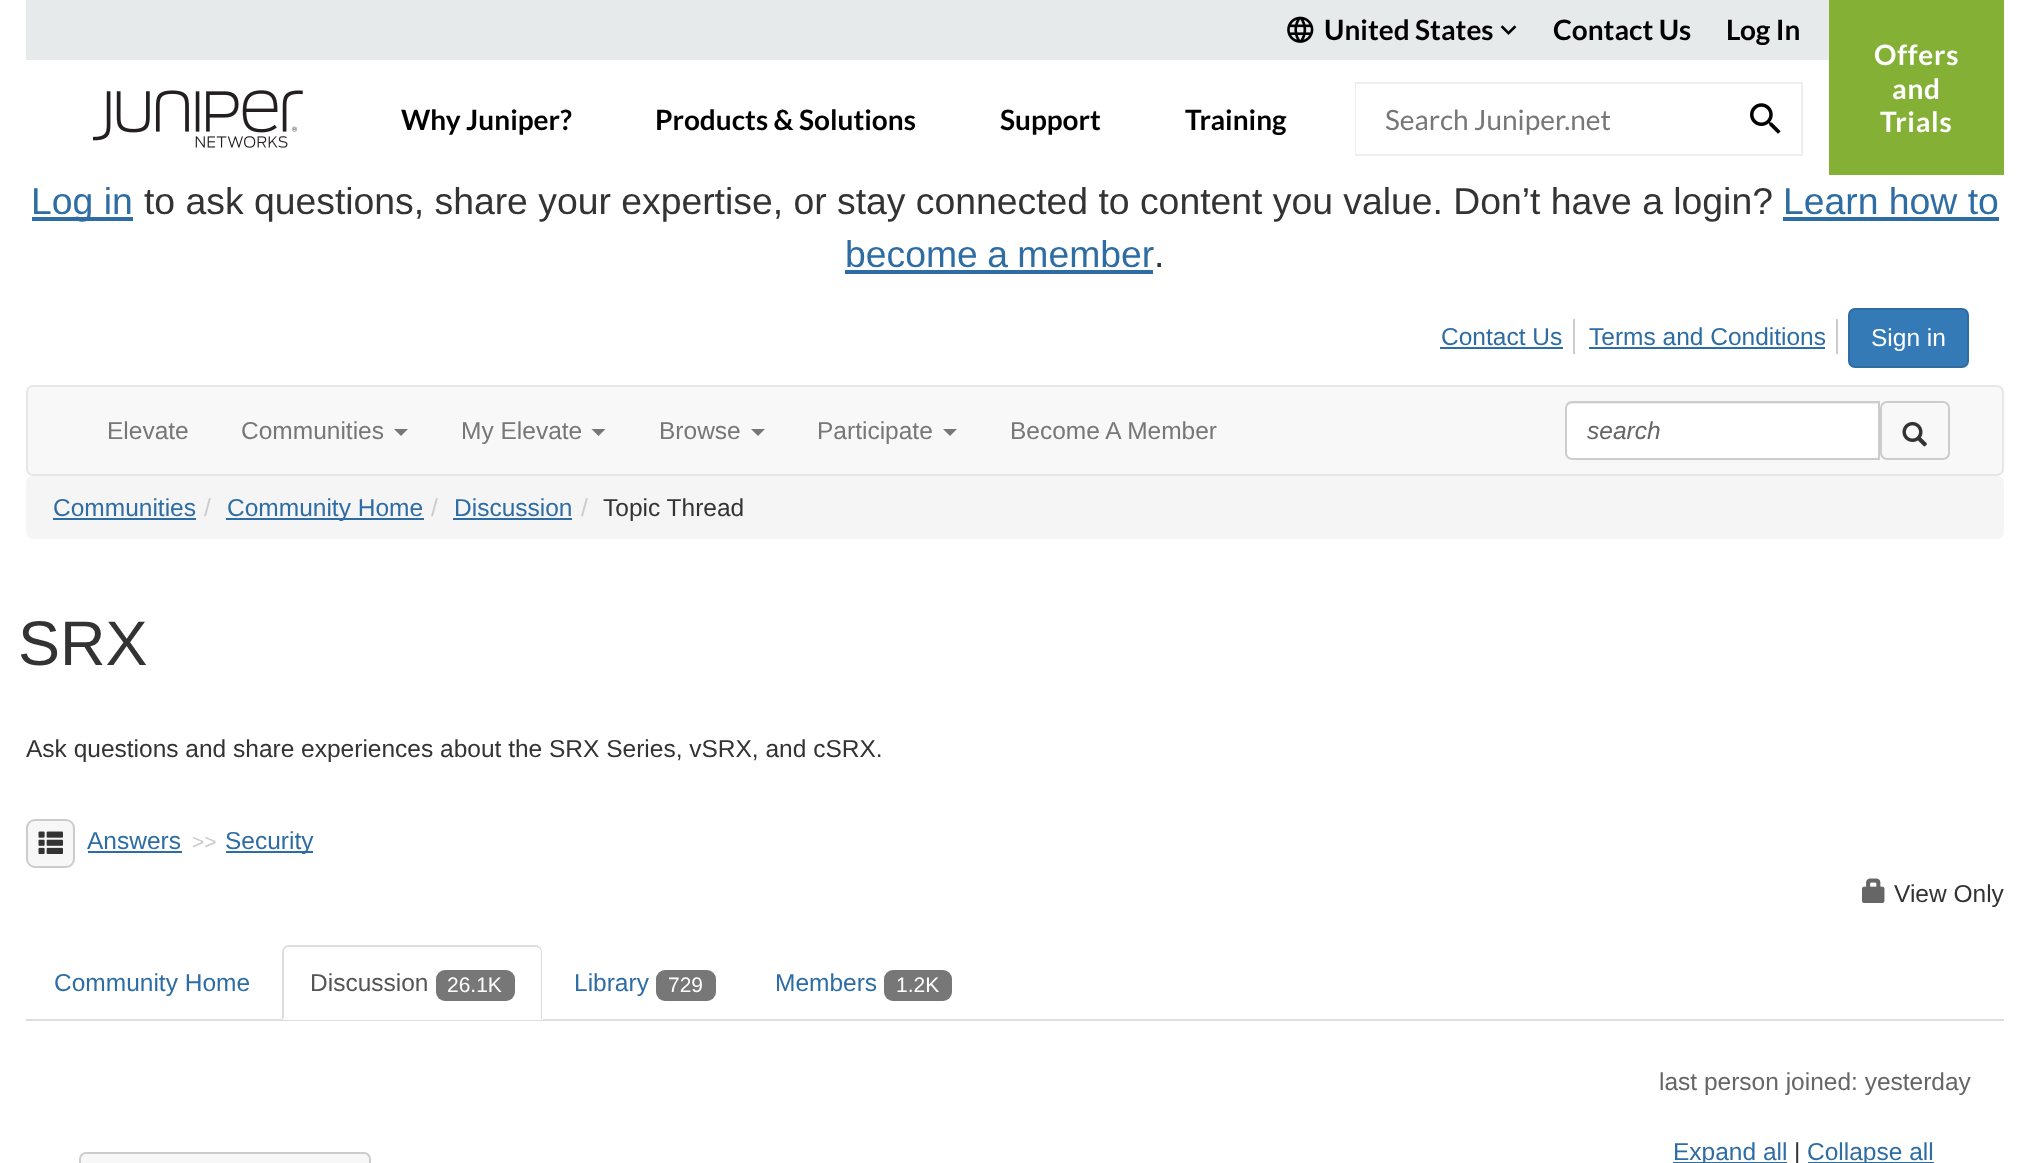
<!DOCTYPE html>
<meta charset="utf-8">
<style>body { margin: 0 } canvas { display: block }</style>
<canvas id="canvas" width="2030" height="1163"></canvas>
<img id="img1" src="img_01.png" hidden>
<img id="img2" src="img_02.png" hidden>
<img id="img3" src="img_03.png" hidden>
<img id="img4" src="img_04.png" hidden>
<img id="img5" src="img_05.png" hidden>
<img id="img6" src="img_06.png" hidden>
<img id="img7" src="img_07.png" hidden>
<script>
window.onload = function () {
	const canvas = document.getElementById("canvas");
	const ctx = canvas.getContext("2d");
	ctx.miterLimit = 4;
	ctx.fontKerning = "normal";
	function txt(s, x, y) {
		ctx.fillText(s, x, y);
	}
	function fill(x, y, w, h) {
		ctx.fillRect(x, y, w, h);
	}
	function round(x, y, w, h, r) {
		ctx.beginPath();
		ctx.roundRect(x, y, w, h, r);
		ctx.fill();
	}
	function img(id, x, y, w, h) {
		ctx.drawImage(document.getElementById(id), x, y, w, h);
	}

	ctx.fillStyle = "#FFFFFF";
	fill(0, 0, 2030, 1163);
	ctx.fillStyle = "#E7EAEB";
	fill(26, 0, 1803, 60);
	img("img1", 1287, 16, 27, 27);
	img("img2", 1500, 25, 17, 10);
	img("img3", 93, 90, 210, 58);
	ctx.strokeStyle = "#EEEEEE";
	ctx.lineWidth = 2;
	ctx.strokeRect(1356, 83, 446, 72);
	ctx.fillStyle = "#FFFFFF";
	fill(1356, 84, 1, 70);
	img("img4", 1750, 103, 31, 31);
	ctx.fillStyle = "#84B135";
	fill(1829, 0, 175, 175);
	ctx.fillStyle = "#2E6DA4";
	fill(32, 217, 101, 4);
	fill(1783, 217, 216, 4);
	fill(845, 270, 308, 4);
	ctx.fillStyle = "#CCCCCC";
	fill(1573, 319, 2, 35);
	ctx.fillStyle = "#2E6DA4";
	fill(1440, 347, 123, 2);
	ctx.fillStyle = "#CCCCCC";
	fill(1836, 319, 2, 35);
	ctx.fillStyle = "#2E6DA4";
	fill(1589, 347, 236, 2);
	ctx.fillStyle = "#337AB7";
	ctx.beginPath();
	ctx.roundRect(1849, 309, 119, 58, 6);
	ctx.fill();
	ctx.strokeStyle = "#2E6DA4";
	ctx.stroke();
	ctx.fillStyle = "#F8F8F8";
	ctx.beginPath();
	ctx.roundRect(27, 386, 1976, 89, 6);
	ctx.fill();
	ctx.strokeStyle = "#E7E7E7";
	ctx.stroke();
	ctx.fillStyle = "#777777";
	ctx.beginPath();
	ctx.moveTo(394, 429);
	ctx.lineTo(408, 429);
	ctx.lineTo(401, 436);
	ctx.closePath();
	ctx.fill();
	ctx.beginPath();
	ctx.moveTo(591.5, 429);
	ctx.lineTo(605.5, 429);
	ctx.lineTo(598.5, 436);
	ctx.closePath();
	ctx.fill();
	ctx.beginPath();
	ctx.moveTo(751, 429);
	ctx.lineTo(765, 429);
	ctx.lineTo(758, 436);
	ctx.closePath();
	ctx.fill();
	ctx.beginPath();
	ctx.moveTo(943, 429);
	ctx.lineTo(957, 429);
	ctx.lineTo(950, 436);
	ctx.closePath();
	ctx.fill();
	ctx.fillStyle = "#FFFFFF";
	ctx.beginPath();
	ctx.roundRect(1565, 401, 315, 59, [7, 0, 0, 7]);
	ctx.fill();
	ctx.fillStyle = "#ECECEC";
	ctx.beginPath();
	ctx.moveTo(1572, 404);
	ctx.lineTo(1878, 404);
	ctx.lineTo(1878, 403);
	ctx.lineTo(1570, 403);
	ctx.bezierCurveTo(1566, 404, 1566, 407, 1566, 410);
	ctx.bezierCurveTo(1566, 407, 1569, 404, 1572, 404);
	ctx.closePath();
	ctx.fill();
	ctx.beginPath();
	ctx.roundRect(1566, 402, 313, 57, [6, 0, 0, 6]);
	ctx.strokeStyle = "#CCCCCC";
	ctx.stroke();
	ctx.beginPath();
	ctx.roundRect(1881, 402, 68, 57, 6);
	ctx.stroke();
	img("img5", 1902, 421, 25, 26);
	ctx.fillStyle = "#F5F5F5";
	round(26, 476, 1978, 63, 7);
	ctx.fillStyle = "#2E6DA4";
	fill(53, 518, 143, 2);
	fill(226, 518, 198, 2);
	fill(453, 518, 119, 2);
	ctx.fillStyle = "#F7F7F7";
	ctx.beginPath();
	ctx.roundRect(27, 820, 47, 47, 8);
	ctx.fill();
	ctx.stroke();
	img("img6", 38, 831, 25, 23);
	ctx.fillStyle = "#2E6DA4";
	fill(88, 851, 94, 2);
	fill(226, 851, 87, 2);
	img("img7", 1862, 878, 23, 25);
	ctx.fillStyle = "#DDDDDD";
	fill(26, 1019, 1978, 2);
	ctx.fillStyle = "#FFFFFF";
	ctx.beginPath();
	ctx.roundRect(282, 945, 261, 75, [7, 7, 0, 0]);
	ctx.fill();
	ctx.fillStyle = "#DDDDDD";
	ctx.beginPath();
	ctx.moveTo(289, 945);
	ctx.bezierCurveTo(287, 945, 285, 946, 284, 947);
	ctx.lineTo(285, 949);
	ctx.bezierCurveTo(286, 947, 288, 947, 289, 947);
	ctx.lineTo(536, 947);
	ctx.lineTo(539, 948);
	ctx.lineTo(540, 947);
	ctx.bezierCurveTo(539, 946, 538, 945, 536, 945);
	ctx.closePath();
	ctx.fill();
	ctx.beginPath();
	ctx.moveTo(540, 947);
	ctx.bezierCurveTo(541, 948, 542, 950, 542, 952);
	ctx.lineTo(542, 1020);
	ctx.lineTo(540, 1018);
	ctx.lineTo(541, 1018);
	ctx.lineTo(541, 951);
	ctx.lineTo(539, 948);
	ctx.closePath();
	ctx.fill();
	ctx.beginPath();
	ctx.moveTo(284, 947);
	ctx.bezierCurveTo(283, 948, 282, 950, 282, 952);
	ctx.lineTo(282, 1020);
	ctx.lineTo(284, 1018);
	ctx.lineTo(284, 952);
	ctx.bezierCurveTo(284, 951, 284, 949, 285, 949);
	ctx.closePath();
	ctx.fill();
	ctx.fillStyle = "#777777";
	round(436, 970, 79, 31, 9);
	round(656, 970, 60, 31, 9);
	round(884, 970, 68, 31, 9);
	ctx.fillStyle = "#F7F7F7";
	ctx.beginPath();
	ctx.roundRect(80, 1153, 290, 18, 6);
	ctx.fill();
	ctx.stroke();
	ctx.fillStyle = "#2E6DA4";
	fill(1673, 1162, 114, 1);
	fill(1808, 1162, 126, 1);
	ctx.font = "bold 28px Lato";
	ctx.fillStyle = "#000000";
	txt("United States", 1324, 40);
	txt("Contact Us", 1553, 40);
	txt("Log In", 1726, 40);
	txt("Why Juniper?", 401, 130);
	txt("Products & Solutions", 655, 130);
	txt("Support", 1000, 130);
	txt("Training", 1185, 130);
	ctx.font = "28px Lato";
	ctx.fillStyle = "#777777";
	txt("Search Juniper.net", 1385, 130);
	ctx.letterSpacing = "0.75px";
	ctx.font = "bold 28px Lato";
	ctx.fillStyle = "#FFFFFF";
	txt("Offers", 1874, 65);
	txt("and", 1892, 99);
	txt("Trials", 1880, 132);
	ctx.letterSpacing = "0px";
	ctx.font = "37.35px Liberation Sans";
	ctx.fillStyle = "#2E6DA4";
	txt("Log in", 31, 214);
	ctx.fillStyle = "#333333";
	txt("to ask questions, share your expertise, or stay connected to content you value. Don’t have a login?", 144, 214);
	ctx.fillStyle = "#2E6DA4";
	txt("Learn how to", 1783, 214);
	ctx.wordSpacing = "-1px";
	txt("become a member", 845, 267);
	ctx.wordSpacing = "0px";
	ctx.fillStyle = "#333333";
	txt(".", 1154, 267);
	ctx.font = "24.5px Liberation Sans";
	ctx.fillStyle = "#2E6DA4";
	txt("Contact Us", 1441, 345);
	txt("Terms and Conditions", 1589, 345);
	ctx.fillStyle = "#FFFFFF";
	txt("Sign in", 1871, 346);
	ctx.fillStyle = "#777777";
	txt("Elevate", 107, 439);
	txt("Communities", 241, 439);
	txt("My Elevate", 461, 439);
	txt("Browse", 659, 439);
	txt("Participate", 817, 439);
	txt("Become A Member", 1010, 439);
	ctx.font = "italic 24.5px Liberation Sans";
	ctx.fillStyle = "#666666";
	txt("search", 1587, 439);
	ctx.font = "24.5px Liberation Sans";
	ctx.fillStyle = "#2E6DA4";
	txt("Communities", 53, 516);
	ctx.fillStyle = "#CCCCCC";
	txt("/", 204, 516);
	ctx.fillStyle = "#2E6DA4";
	txt("Community Home", 227, 516);
	ctx.fillStyle = "#CCCCCC";
	txt("/", 431, 516);
	ctx.fillStyle = "#2E6DA4";
	txt("Discussion", 454, 516);
	ctx.fillStyle = "#CCCCCC";
	txt("/", 581, 516);
	ctx.fillStyle = "#333333";
	txt("Topic Thread", 603, 516);
	ctx.font = "63px Liberation Sans";
	txt("SRX", 18, 665);
	ctx.font = "24.5px Liberation Sans";
	txt("Ask questions and share experiences about the SRX Series, vSRX, and cSRX.", 26, 757);
	ctx.fillStyle = "#2E6DA4";
	txt("Answers", 87, 849);
	ctx.font = "21px Liberation Sans";
	ctx.fillStyle = "#CCCCCC";
	txt(">>", 192, 849);
	ctx.font = "24.5px Liberation Sans";
	ctx.fillStyle = "#2E6DA4";
	txt("Security", 225, 849);
	ctx.fillStyle = "#333333";
	txt("View Only", 1894, 902);
	ctx.fillStyle = "#2E6DA4";
	txt("Community Home", 54, 991);
	ctx.fillStyle = "#555555";
	txt("Discussion", 310, 991);
	ctx.font = "21px Liberation Sans";
	ctx.fillStyle = "#FFFFFF";
	txt("26.1K", 447, 992);
	ctx.font = "24.5px Liberation Sans";
	ctx.fillStyle = "#2E6DA4";
	txt("Library", 574, 991);
	ctx.font = "21px Liberation Sans";
	ctx.fillStyle = "#FFFFFF";
	txt("729", 668, 992);
	ctx.font = "24.5px Liberation Sans";
	ctx.fillStyle = "#2E6DA4";
	txt("Members", 775, 991);
	ctx.font = "21px Liberation Sans";
	ctx.fillStyle = "#FFFFFF";
	txt("1.2K", 896, 992);
	ctx.font = "24.5px Liberation Sans";
	ctx.fillStyle = "#666666";
	txt("last person joined: yesterday", 1659, 1090);
	ctx.fillStyle = "#2E6DA4";
	txt("Expand all", 1673, 1160);
	ctx.fillStyle = "#333333";
	txt("|", 1794, 1160);
	ctx.fillStyle = "#2E6DA4";
	txt("Collapse all", 1807, 1160);
};
</script>
